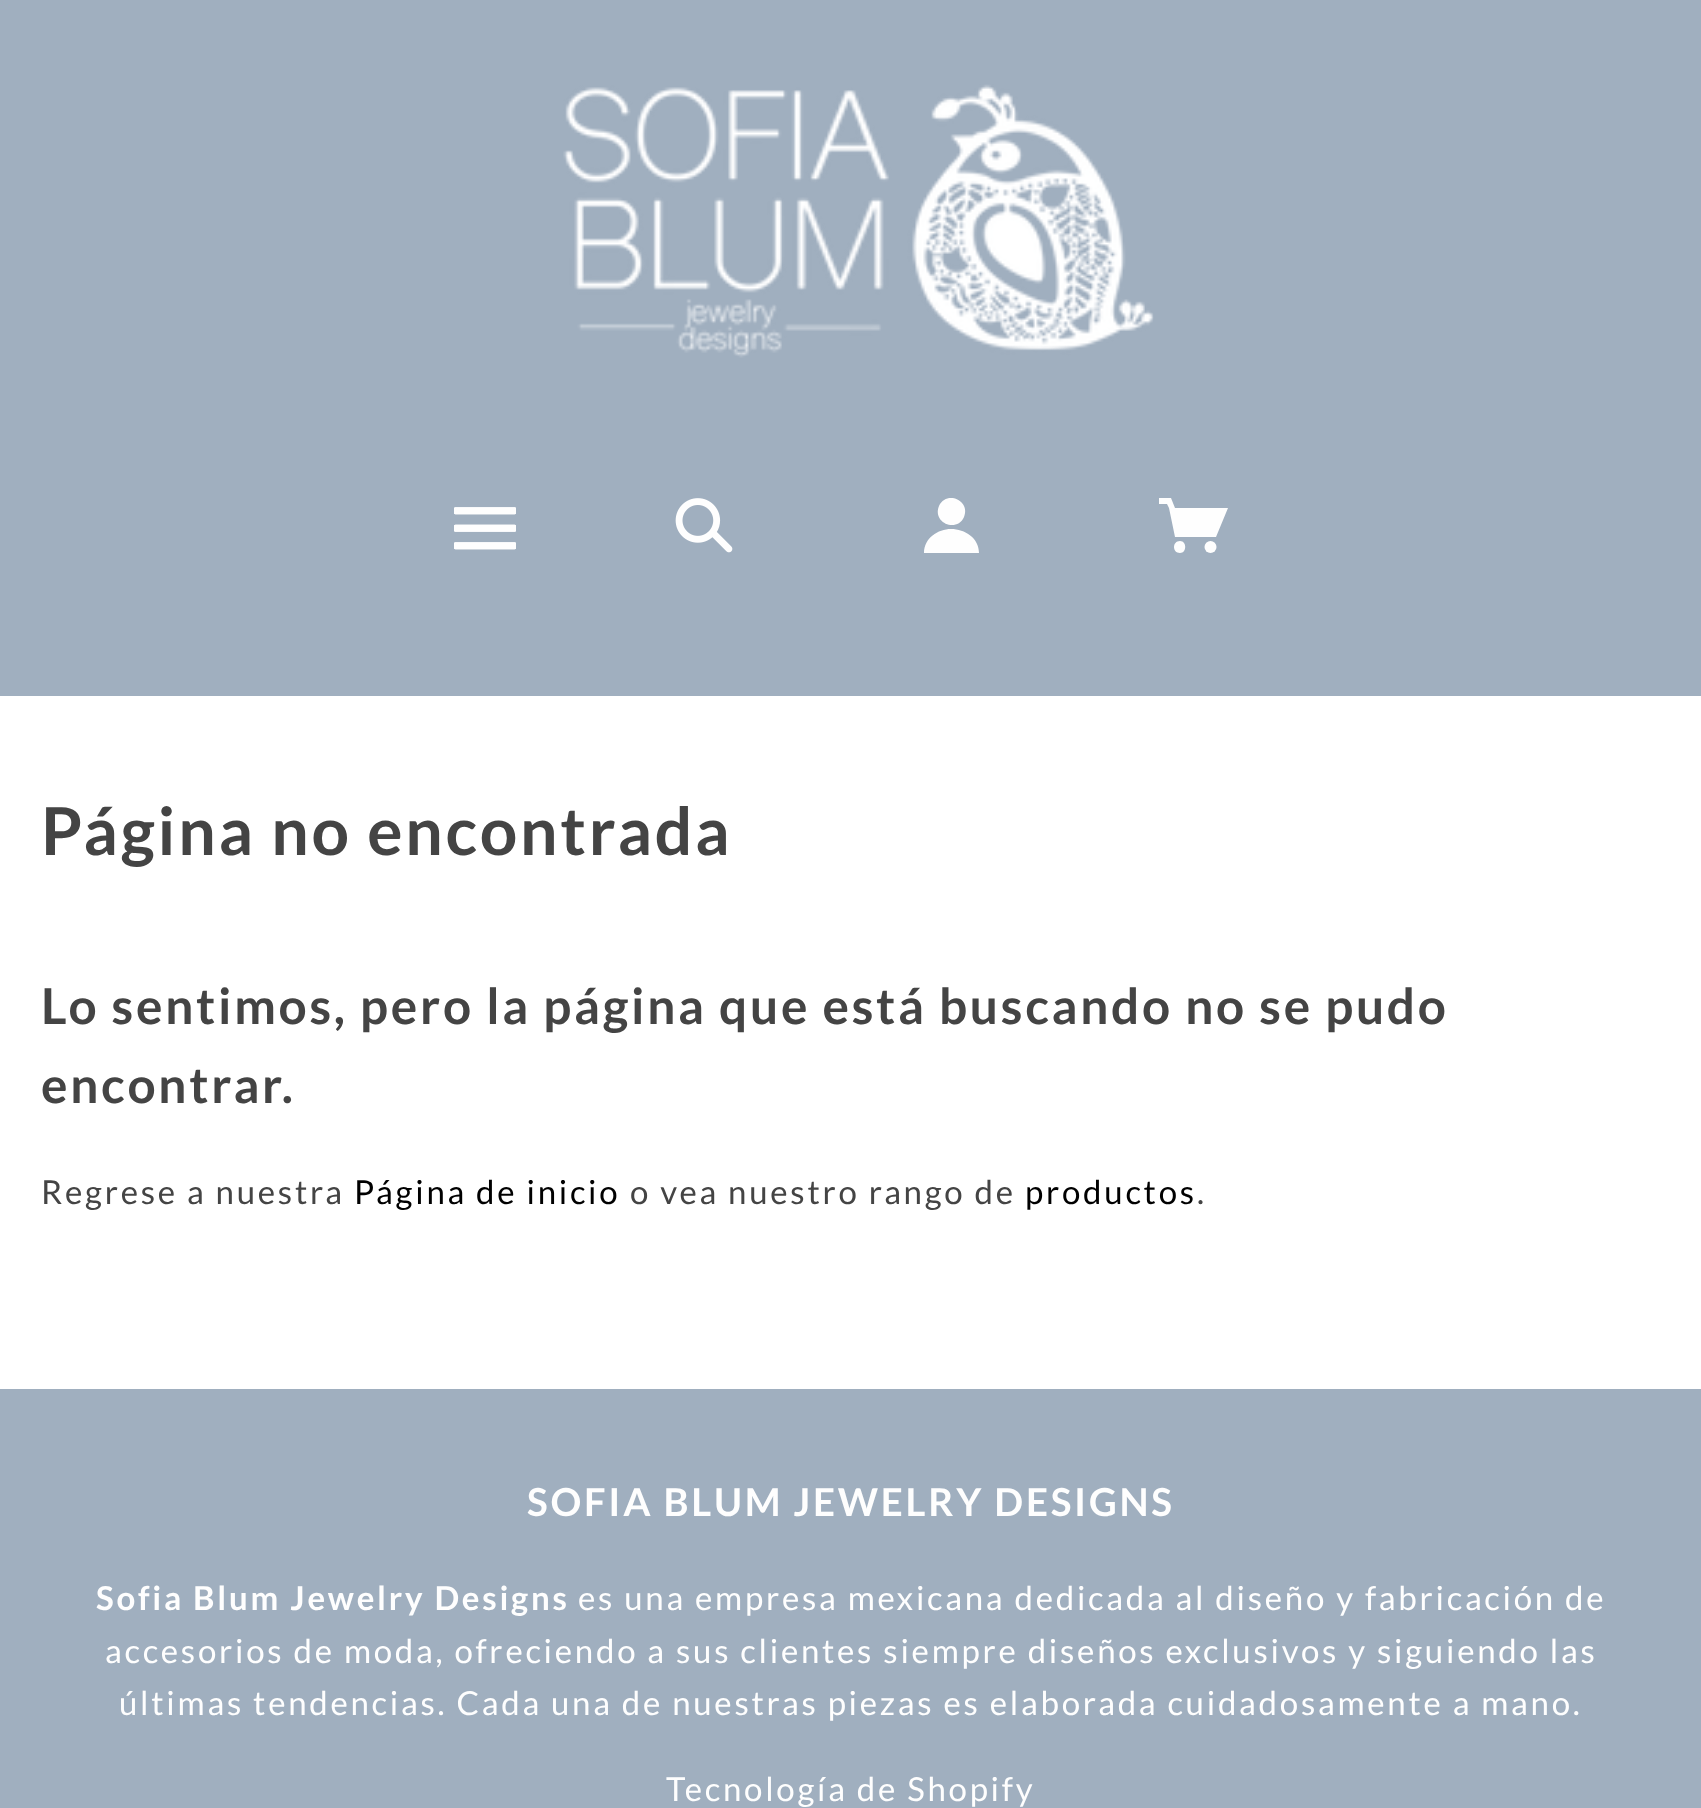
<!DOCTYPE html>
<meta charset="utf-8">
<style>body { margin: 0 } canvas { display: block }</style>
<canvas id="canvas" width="1701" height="1808"></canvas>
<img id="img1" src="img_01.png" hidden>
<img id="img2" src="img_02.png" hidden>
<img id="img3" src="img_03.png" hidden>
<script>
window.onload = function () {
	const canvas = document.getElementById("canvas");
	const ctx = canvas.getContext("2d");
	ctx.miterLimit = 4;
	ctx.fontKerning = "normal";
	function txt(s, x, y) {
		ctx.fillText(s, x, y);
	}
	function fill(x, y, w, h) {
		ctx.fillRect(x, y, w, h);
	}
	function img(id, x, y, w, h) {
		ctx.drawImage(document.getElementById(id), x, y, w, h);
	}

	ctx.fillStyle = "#FFFFFF";
	fill(0, 0, 1701, 1808);
	ctx.fillStyle = "#A0AFBF";
	fill(0, 0, 1701, 696);
	img("img1", 563, 84, 591, 274);
	img("img2", 454, 507, 62, 43);
	img("img3", 675, 498, 58, 55);
	ctx.fillStyle = "#FEFEFE";
	ctx.beginPath();
	ctx.moveTo(951, 529);
	ctx.bezierCurveTo(965, 529, 979, 538, 979, 553);
	ctx.lineTo(924, 553);
	ctx.bezierCurveTo(924, 538, 938, 529, 951, 529);
	ctx.closePath();
	ctx.moveTo(964, 517);
	ctx.bezierCurveTo(957, 533, 932, 523, 939, 506);
	ctx.bezierCurveTo(946, 490, 971, 500, 964, 517);
	ctx.closePath();
	ctx.fill();
	ctx.beginPath();
	ctx.moveTo(1175, 537);
	ctx.lineTo(1216, 537);
	ctx.lineTo(1228, 508);
	ctx.lineTo(1175, 508);
	ctx.lineTo(1171, 498);
	ctx.lineTo(1159, 498);
	ctx.lineTo(1159, 504);
	ctx.lineTo(1167, 504);
	ctx.lineTo(1169, 508);
	ctx.closePath();
	ctx.moveTo(1180, 541);
	ctx.bezierCurveTo(1172, 541, 1172, 553, 1180, 553);
	ctx.bezierCurveTo(1187, 553, 1187, 541, 1180, 541);
	ctx.closePath();
	ctx.fill();
	ctx.beginPath();
	ctx.arc(1210.5, 547, 6, 0, Math.PI * 2);
	ctx.fill();
	ctx.fillStyle = "#A0AFBF";
	fill(0, 1389, 1701, 419);
	ctx.letterSpacing = "2.75px";
	ctx.font = "bold 66px Lato";
	ctx.fillStyle = "#444444";
	txt("Página no encontrada", 41, 855);
	ctx.font = "bold 49.5px Lato";
	txt("Lo sentimos, pero la página que está buscando no se pudo", 41, 1024);
	txt("encontrar.", 41, 1103);
	ctx.font = "33px Lato";
	txt("Regrese a nuestra", 41, 1204);
	ctx.fillStyle = "#000000";
	txt("Página de inicio", 354, 1204);
	ctx.fillStyle = "#444444";
	txt("o vea nuestro rango de", 630, 1204);
	ctx.fillStyle = "#000000";
	txt("productos", 1025, 1204);
	ctx.fillStyle = "#444444";
	txt(".", 1197, 1204);
	ctx.font = "bold 38.5px Lato";
	ctx.fillStyle = "#FEFEFE";
	txt("SOFIA BLUM JEWELRY DESIGNS", 527, 1516);
	ctx.font = "bold 33px Lato";
	txt("Sofia Blum Jewelry Designs", 96, 1610);
	ctx.font = "33px Lato";
	txt("es una empresa mexicana dedicada al diseño y fabricación de", 578, 1610);
	txt("accesorios de moda, ofreciendo a sus clientes siempre diseños exclusivos y siguiendo las", 105, 1663);
	txt("últimas tendencias. Cada una de nuestras piezas es elaborada cuidadosamente a mano.", 119, 1715);
	txt("Tecnología de Shopify", 666, 1801);
};
</script>
